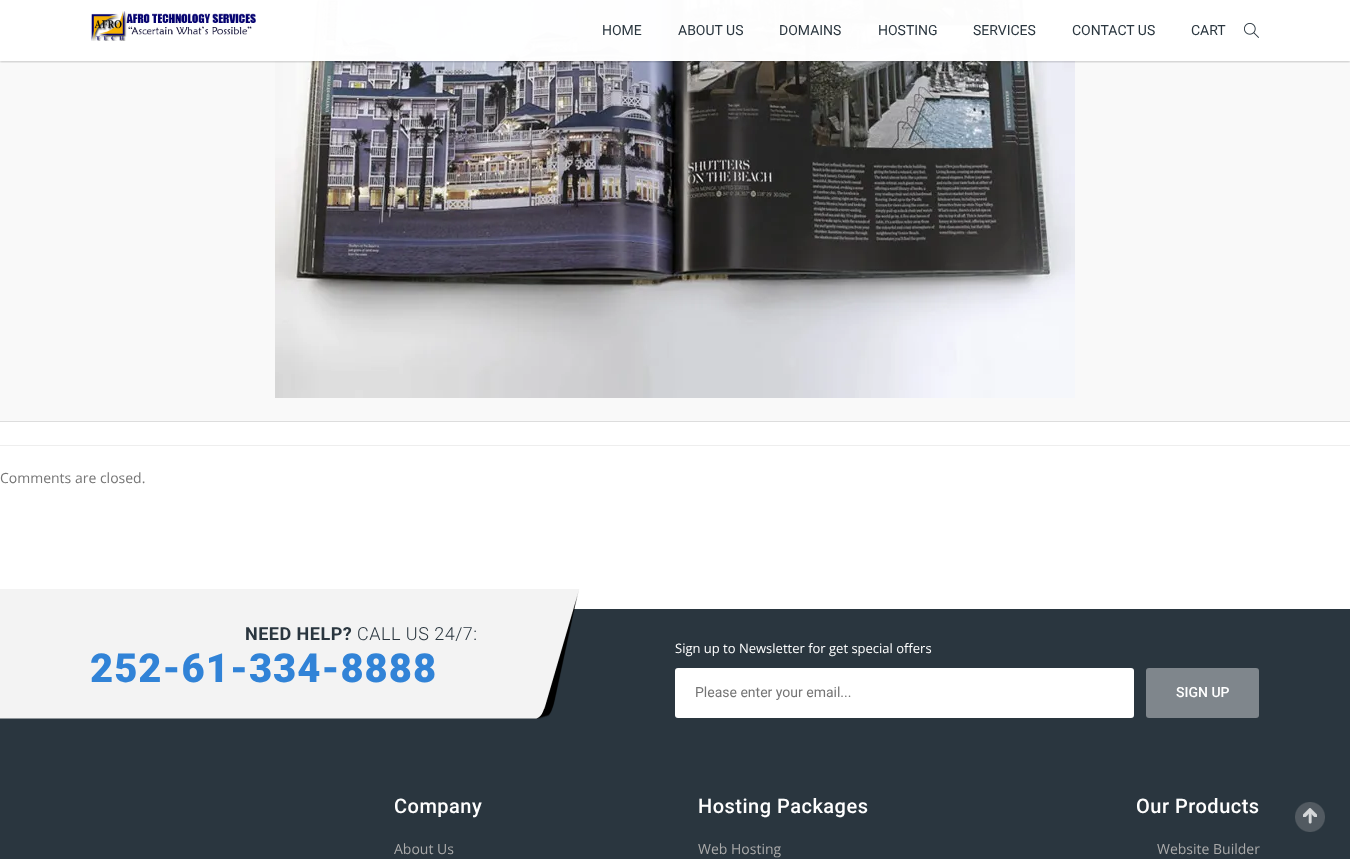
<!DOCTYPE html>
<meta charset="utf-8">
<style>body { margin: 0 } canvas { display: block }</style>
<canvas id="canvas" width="1350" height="859"></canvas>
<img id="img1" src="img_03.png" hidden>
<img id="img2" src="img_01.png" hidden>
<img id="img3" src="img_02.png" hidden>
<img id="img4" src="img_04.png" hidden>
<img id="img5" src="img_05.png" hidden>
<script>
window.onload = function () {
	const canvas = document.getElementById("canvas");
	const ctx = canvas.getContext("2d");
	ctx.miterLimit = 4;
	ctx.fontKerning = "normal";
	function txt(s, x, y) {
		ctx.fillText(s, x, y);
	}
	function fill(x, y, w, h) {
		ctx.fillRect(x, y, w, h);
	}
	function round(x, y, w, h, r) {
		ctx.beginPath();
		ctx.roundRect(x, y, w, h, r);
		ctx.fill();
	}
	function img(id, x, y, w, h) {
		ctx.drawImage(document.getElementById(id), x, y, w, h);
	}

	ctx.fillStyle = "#FFFFFF";
	fill(0, 0, 1350, 859);
	ctx.fillStyle = "#F9F9F9";
	fill(0, 0, 1350, 421);
	img("img1", 275, 0, 800, 398);
	ctx.save();
	ctx.beginPath();
	ctx.rect(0, 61, 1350, 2);
	ctx.clip();
	ctx.fillStyle = "rgba(0, 0, 0, 0.2)";
	ctx.filter = "blur(1px)";
	ctx.beginPath();
	ctx.rect(0, 1, 1350, 61);
	ctx.fill();
	ctx.filter = "none";
	ctx.restore();
	ctx.fillStyle = "rgba(255, 255, 255, 0.99)";
	fill(0, 0, 1350, 61);
	img("img2", 91, 11, 165, 30);
	img("img3", 1244, 22, 15, 16);
	ctx.fillStyle = "#DDDDDD";
	fill(0, 421, 1350, 1);
	ctx.fillStyle = "#EEEEEE";
	fill(0, 445, 1350, 1);
	img("img4", 0, 589, 1350, 130);
	ctx.fillStyle = "#FFFFFF";
	round(675, 668, 459, 50, 3);
	ctx.fillStyle = "#7F868C";
	round(1146, 668, 113, 50, 3);
	ctx.fillStyle = "#2A363F";
	fill(0, 719, 1350, 140);
	img("img5", 1295, 802, 30, 30);
	ctx.font = "14px Roboto";
	txt("HOME", 602, 35);
	txt("ABOUT US", 678, 35);
	txt("DOMAINS", 779, 35);
	txt("HOSTING", 878, 35);
	txt("SERVICES", 973, 35);
	txt("CONTACT US", 1072, 35);
	txt("CART", 1191, 35);
	ctx.font = "14px Open Sans";
	ctx.fillStyle = "#757575";
	txt("Comments are closed.", 0, 483);
	ctx.letterSpacing = "0.5px";
	ctx.font = "bold 18px Roboto";
	ctx.fillStyle = "#2A363F";
	txt("NEED HELP?", 245, 640);
	ctx.font = "300 18px Roboto";
	txt("CALL US 24/7:", 357, 640);
	ctx.letterSpacing = "1px";
	ctx.font = "900 40px Roboto";
	ctx.fillStyle = "#3183D7";
	txt("252-61-334-8888", 90, 682);
	ctx.letterSpacing = "0px";
	ctx.font = "13px Open Sans";
	ctx.fillStyle = "#FFFFFF";
	txt("Sign up to Newsletter for get special offers", 675, 653);
	ctx.font = "14px Roboto";
	ctx.fillStyle = "#757575";
	txt("Please enter your email...", 695, 697);
	ctx.font = "500 14px Roboto";
	ctx.fillStyle = "#FFFFFF";
	txt("SIGN UP", 1176, 697);
	ctx.letterSpacing = "0.5px";
	ctx.font = "500 20px Roboto";
	txt("Company", 394, 813);
	ctx.letterSpacing = "0px";
	ctx.font = "14px Open Sans";
	ctx.fillStyle = "#AAAAAA";
	txt("About Us", 394, 854);
	ctx.letterSpacing = "0.5px";
	ctx.font = "500 20px Roboto";
	ctx.fillStyle = "#FFFFFF";
	txt("Hosting Packages", 698, 813);
	ctx.letterSpacing = "0px";
	ctx.font = "14px Open Sans";
	ctx.fillStyle = "#AAAAAA";
	txt("Web Hosting", 698, 854);
	ctx.letterSpacing = "0.5px";
	ctx.font = "500 20px Roboto";
	ctx.fillStyle = "#FFFFFF";
	txt("Our Products", 1136, 813);
	ctx.letterSpacing = "0px";
	ctx.font = "14px Open Sans";
	ctx.fillStyle = "#AAAAAA";
	txt("Website Builder", 1157, 854);
};
</script>
